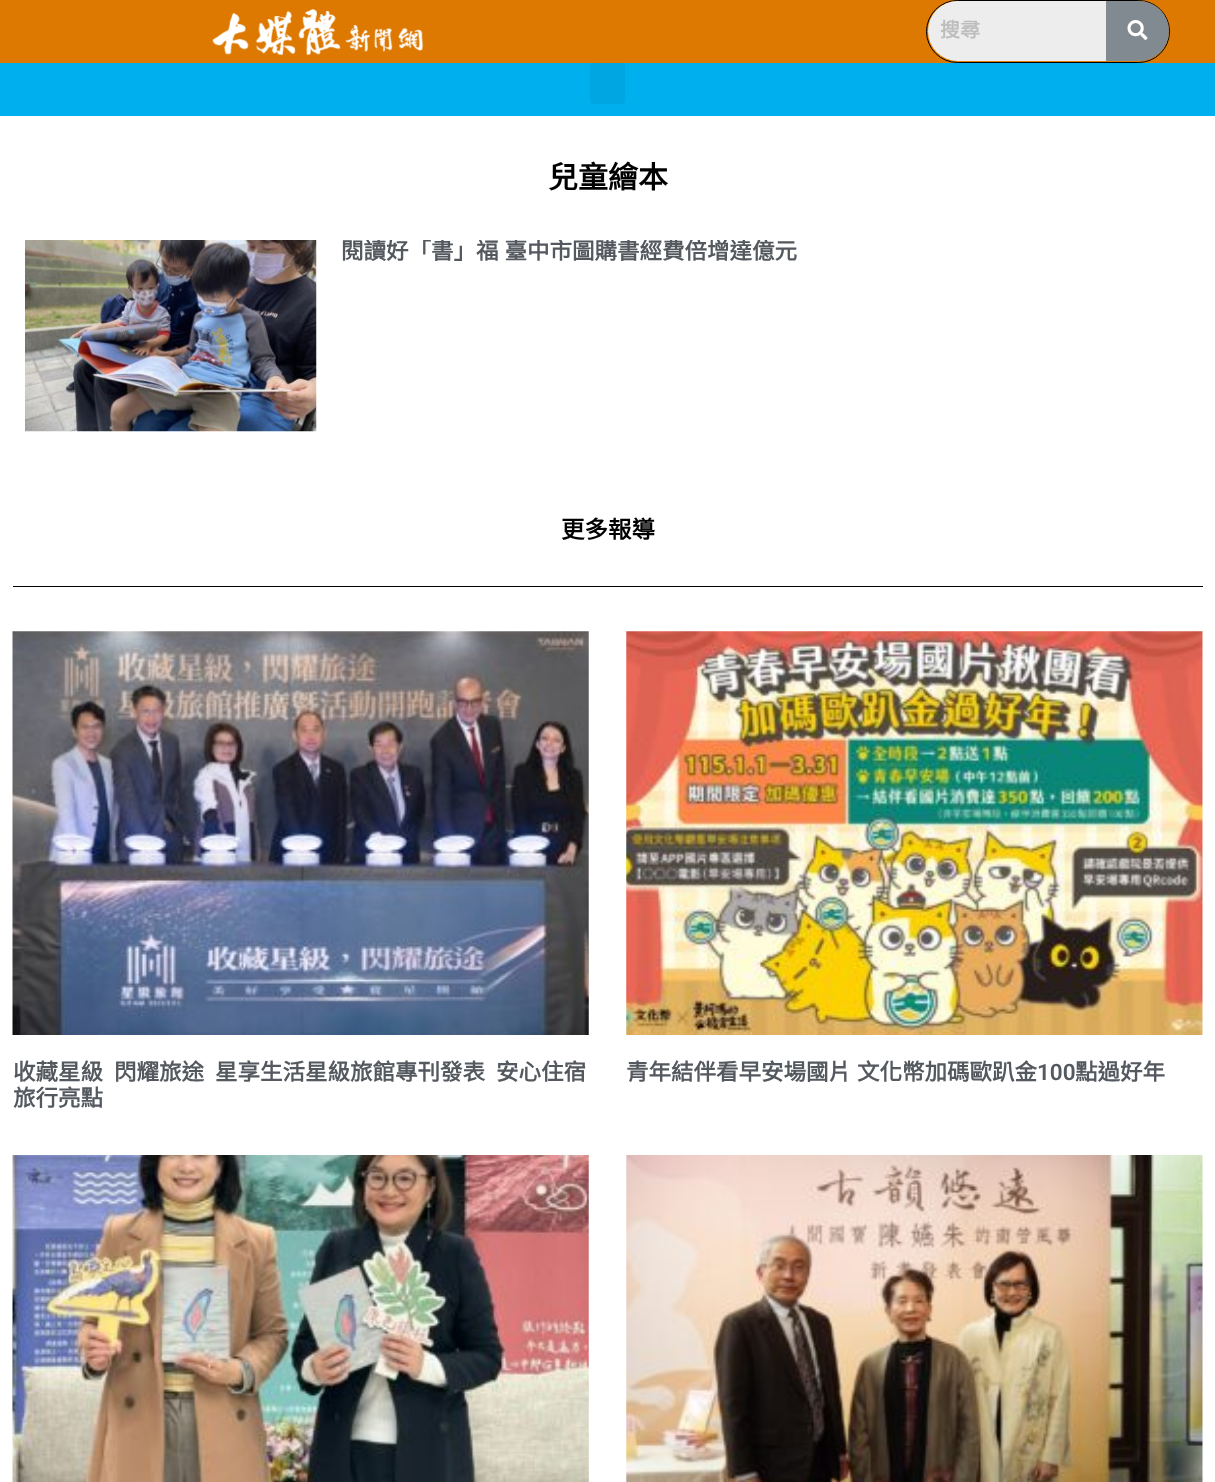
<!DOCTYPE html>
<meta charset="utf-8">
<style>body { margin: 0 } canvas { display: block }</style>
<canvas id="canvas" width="1215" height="1482"></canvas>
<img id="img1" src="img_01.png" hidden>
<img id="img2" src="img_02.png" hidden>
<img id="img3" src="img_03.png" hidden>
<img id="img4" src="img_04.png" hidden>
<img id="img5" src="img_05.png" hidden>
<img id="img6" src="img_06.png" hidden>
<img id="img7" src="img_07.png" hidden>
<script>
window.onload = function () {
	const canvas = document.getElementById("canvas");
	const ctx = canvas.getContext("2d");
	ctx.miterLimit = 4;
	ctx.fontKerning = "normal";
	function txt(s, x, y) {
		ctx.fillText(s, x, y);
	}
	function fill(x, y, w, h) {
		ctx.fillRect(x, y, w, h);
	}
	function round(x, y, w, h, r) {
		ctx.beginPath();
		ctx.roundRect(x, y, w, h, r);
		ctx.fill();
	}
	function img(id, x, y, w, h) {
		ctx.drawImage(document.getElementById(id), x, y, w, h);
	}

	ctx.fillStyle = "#FFFFFF";
	fill(0, 0, 1215, 1482);
	ctx.fillStyle = "#DD7900";
	fill(0, 0, 1215, 63);
	img("img1", 212, 9, 212, 47);
	ctx.beginPath();
	ctx.roundRect(926.5, 0.5, 243, 62, 31);
	ctx.strokeStyle = "#000000";
	ctx.stroke();
	ctx.fillStyle = "#EDEDED";
	ctx.beginPath();
	ctx.roundRect(928, 1, 178, 60, [30, 0, 0, 30]);
	ctx.fill();
	ctx.fillStyle = "#818A91";
	ctx.beginPath();
	ctx.roundRect(1106, 1, 63, 60, [0, 30, 30, 0]);
	ctx.fill();
	img("img2", 1127, 20, 21, 20);
	ctx.fillStyle = "#00AFED";
	fill(0, 63, 1215, 53);
	ctx.fillStyle = "#00A6E1";
	round(590, 63, 35, 41, 4);
	img("img3", 25, 240, 292, 192);
	ctx.fillStyle = "#000000";
	fill(13, 586, 1190, 1);
	img("img4", 12, 631, 577, 404);
	img("img5", 626, 631, 577, 404);
	img("img6", 12, 1155, 577, 327);
	img("img7", 626, 1155, 577, 327);
	ctx.font = "bold 20px Noto Sans CJK TC";
	ctx.fillStyle = "#BDBDBD";
	txt("搜尋", 940, 37);
	ctx.font = "bold 30px Noto Sans CJK TC";
	ctx.fillStyle = "#000000";
	txt("兒童繪本", 548, 188);
	ctx.save();
	ctx.beginPath();
	ctx.rect(25, 240, 1165, 191);
	ctx.clip();
	ctx.wordSpacing = "1px";
	ctx.font = "bold 22.5px Noto Sans CJK TC";
	ctx.fillStyle = "#54595F";
	txt("閱讀好「書」福 臺中市圖購書經費倍增達億元", 341, 259);
	ctx.restore();
	ctx.font = "bold 23.5px Noto Sans CJK TC";
	txt("更多報導", 561, 538);
	ctx.font = "bold 22.5px Noto Sans CJK TC";
	ctx.fillStyle = "#54595F";
	txt("收藏星級", 13, 1080);
	txt("閃耀旅途", 114, 1080);
	txt("星享生活星級旅館專刊發表", 215, 1080);
	txt("安心住宿", 496, 1080);
	txt("旅行亮點", 13, 1106);
	ctx.wordSpacing = "1px";
	txt("青年結伴看早安場國片 文化幣加碼歐趴金", 626, 1080);
	ctx.wordSpacing = "0px";
	ctx.font = "600 22.5px Roboto";
	txt("100", 1037, 1080);
	ctx.font = "bold 22.5px Noto Sans CJK TC";
	txt("點過好年", 1075, 1080);
};
</script>
